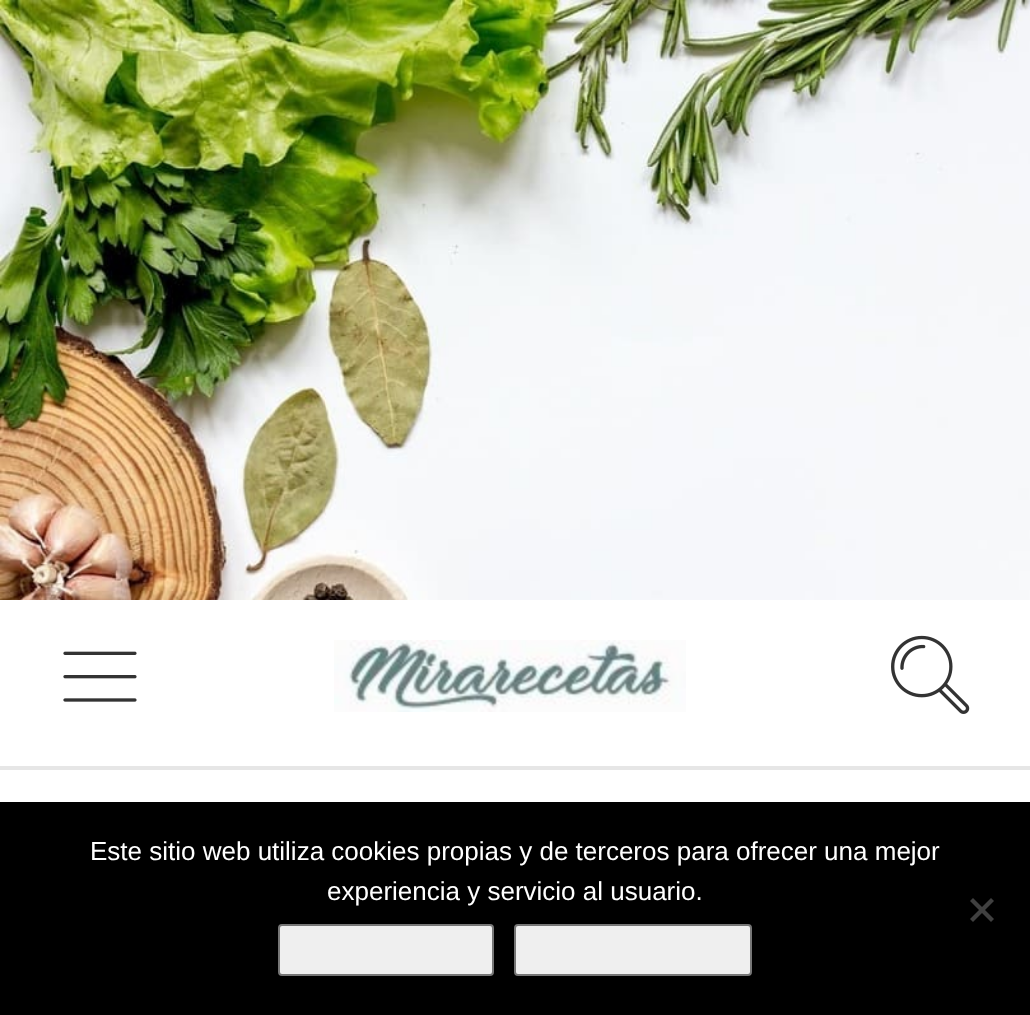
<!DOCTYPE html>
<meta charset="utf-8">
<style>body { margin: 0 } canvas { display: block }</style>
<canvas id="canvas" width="1030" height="1015"></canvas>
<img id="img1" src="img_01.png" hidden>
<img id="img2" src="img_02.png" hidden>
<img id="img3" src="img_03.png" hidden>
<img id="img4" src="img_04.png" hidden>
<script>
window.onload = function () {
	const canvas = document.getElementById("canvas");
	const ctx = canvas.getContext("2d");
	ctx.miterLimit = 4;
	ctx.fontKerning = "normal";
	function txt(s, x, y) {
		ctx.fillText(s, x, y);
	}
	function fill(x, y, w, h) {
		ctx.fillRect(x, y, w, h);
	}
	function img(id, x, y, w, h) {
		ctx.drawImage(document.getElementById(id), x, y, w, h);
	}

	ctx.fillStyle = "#FFFFFF";
	fill(0, 0, 1030, 1015);
	img("img1", 0, 0, 1030, 600);
	img("img2", 63, 651, 74, 51);
	img("img3", 334, 640, 352, 72);
	img("img4", 891, 635, 79, 79);
	ctx.fillStyle = "#E6E6E6";
	fill(0, 766, 1030, 4);
	ctx.fillStyle = "#000000";
	fill(0, 802, 1030, 213);
	ctx.fillStyle = "#404040";
	ctx.beginPath();
	ctx.moveTo(991, 898);
	ctx.lineTo(994, 901);
	ctx.lineTo(973, 922);
	ctx.lineTo(970, 919);
	ctx.closePath();
	ctx.fill();
	ctx.beginPath();
	ctx.moveTo(970, 901);
	ctx.lineTo(973, 898);
	ctx.lineTo(994, 919);
	ctx.lineTo(991, 922);
	ctx.closePath();
	ctx.fill();
	ctx.fillStyle = "#EFEFEF";
	ctx.beginPath();
	ctx.roundRect(279, 925, 214, 50, 3);
	ctx.fill();
	ctx.strokeStyle = "#767676";
	ctx.lineWidth = 2;
	ctx.stroke();
	ctx.beginPath();
	ctx.roundRect(515, 925, 236, 50, 3);
	ctx.fill();
	ctx.stroke();
	ctx.font = "26px Liberation Sans";
	ctx.fillStyle = "#FFFFFF";
	txt("Este sitio web utiliza cookies propias y de terceros para ofrecer una mejor", 90, 860);
	txt("experiencia y servicio al usuario.", 327, 900);
};
</script>
